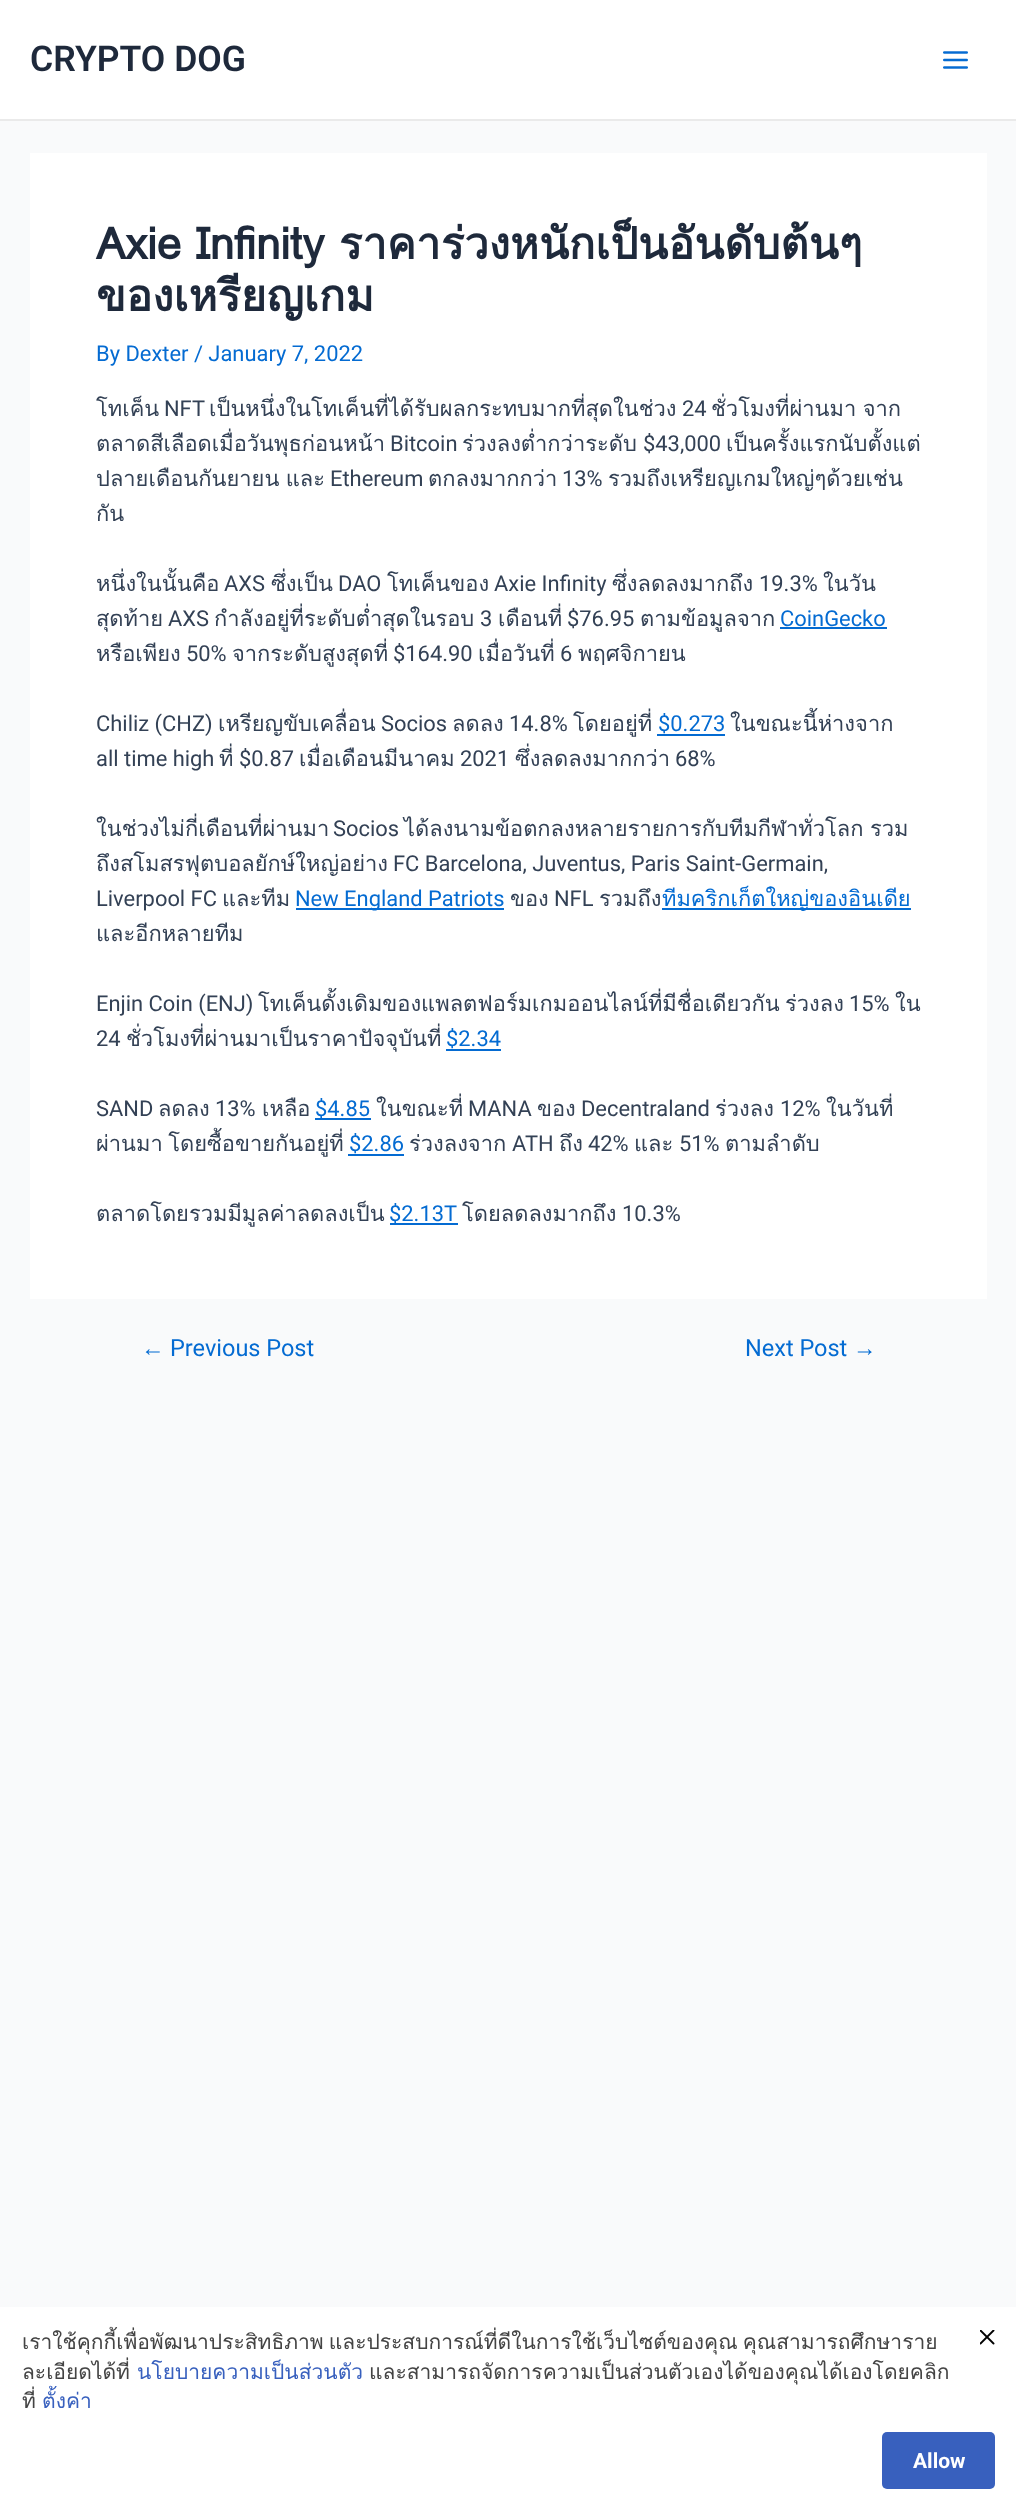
<!DOCTYPE html>
<meta charset="utf-8">
<style>body { margin: 0 } canvas { display: block }</style>
<canvas id="canvas" width="1016" height="2511"></canvas>
<img id="img1" src="img_01.png" hidden>
<img id="img2" src="img_02.png" hidden>
<script>
window.onload = function () {
	const canvas = document.getElementById("canvas");
	const ctx = canvas.getContext("2d");
	ctx.miterLimit = 4;
	ctx.fontKerning = "normal";
	function txt(s, x, y) {
		ctx.fillText(s, x, y);
	}
	function fill(x, y, w, h) {
		ctx.fillRect(x, y, w, h);
	}
	function round(x, y, w, h, r) {
		ctx.beginPath();
		ctx.roundRect(x, y, w, h, r);
		ctx.fill();
	}
	function img(id, x, y, w, h) {
		ctx.drawImage(document.getElementById(id), x, y, w, h);
	}

	ctx.fillStyle = "#F9FAFB";
	fill(0, 0, 1016, 2511);
	ctx.fillStyle = "#FFFFFF";
	fill(0, 0, 1016, 119);
	ctx.fillStyle = "#EAEAEA";
	fill(0, 119, 1016, 2);
	img("img1", 943, 51, 25, 18);
	ctx.fillStyle = "#FFFFFF";
	fill(30, 153, 957, 1146);
	ctx.fillStyle = "#046BD2";
	fill(780, 627, 107, 2);
	fill(657, 734, 68, 2);
	fill(296, 908, 208, 2);
	fill(662, 908, 249, 2);
	fill(446, 1049, 55, 2);
	fill(315, 1118, 56, 2);
	fill(348, 1154, 56, 2);
	fill(390, 1223, 68, 2);
	ctx.fillStyle = "#FFFFFF";
	fill(0, 2307, 1016, 204);
	img("img2", 980, 2330, 15, 15);
	ctx.fillStyle = "#3860BE";
	round(882, 2432, 113, 57, 5);
	ctx.font = "600 35.5px Roboto";
	ctx.fillStyle = "#1E293B";
	txt("CRYPTO DOG", 30, 71);
	ctx.font = "bold 43.75px Loma";
	txt("Axie Infinity ราคาร่วงหนักเป็นอันดับต้นๆ", 96, 259);
	txt("ของเหรียญเกม", 96, 311);
	ctx.font = "21.9px Roboto";
	ctx.fillStyle = "#046BD2";
	txt("By Dexter / January 7, 2022", 96, 361);
	ctx.font = "21.9px Loma";
	ctx.fillStyle = "#334155";
	txt("โทเค็น", 96, 416);
	ctx.font = "21.9px Roboto";
	txt("NFT", 164, 416);
	ctx.font = "21.9px Loma";
	txt("เป็นหนึ่งในโทเค็นที่ได้รับผลกระทบมากที่สุดในช่วง", 209, 416);
	ctx.font = "21.9px Roboto";
	txt("24", 682, 416);
	ctx.wordSpacing = "-1px";
	ctx.font = "21.9px Loma";
	txt("ชั่วโมงที่ผ่านมา จาก", 711, 416);
	ctx.wordSpacing = "0px";
	txt("ตลาดสีเลือดเมื่อวันพุธก่อนหน้า", 96, 451);
	ctx.font = "21.9px Roboto";
	txt("Bitcoin", 390, 451);
	ctx.font = "21.9px Loma";
	txt("ร่วงลงต่ำกว่าระดับ", 462, 451);
	ctx.font = "21.9px Roboto";
	txt("$43,000", 643, 451);
	ctx.font = "21.9px Loma";
	txt("เป็นครั้งแรกนับตั้งแต่", 726, 451);
	ctx.wordSpacing = "-1px";
	txt("ปลายเดือนกันยายน และ", 96, 486);
	ctx.wordSpacing = "0px";
	ctx.font = "21.9px Roboto";
	txt("Ethereum", 330, 486);
	ctx.font = "21.9px Loma";
	txt("ตกลงมากกว่า", 428, 486);
	ctx.font = "21.9px Roboto";
	txt("13%", 562, 486);
	ctx.font = "21.9px Loma";
	txt("รวมถึงเหรียญเกมใหญ่ๆด้วยเช่น", 608, 486);
	txt("กัน", 96, 521);
	txt("หนึ่งในนั้นคือ", 96, 591);
	ctx.font = "21.9px Roboto";
	txt("AXS", 224, 591);
	ctx.font = "21.9px Loma";
	txt("ซึ่งเป็น", 271, 591);
	ctx.font = "21.9px Roboto";
	txt("DAO", 338, 591);
	ctx.font = "21.9px Loma";
	txt("โทเค็นของ", 387, 591);
	ctx.font = "21.9px Roboto";
	txt("Axie Infinity", 494, 591);
	ctx.font = "21.9px Loma";
	txt("ซึ่งลดลงมากถึง", 612, 591);
	ctx.font = "21.9px Roboto";
	txt("19.3%", 759, 591);
	ctx.font = "21.9px Loma";
	txt("ในวัน", 823, 591);
	txt("สุดท้าย", 96, 626);
	ctx.font = "21.9px Roboto";
	txt("AXS", 168, 626);
	ctx.font = "21.9px Loma";
	txt("กำลังอยู่ที่ระดับต่ำสุดในรอบ", 214, 626);
	ctx.font = "21.9px Roboto";
	txt("3", 480, 626);
	ctx.font = "21.9px Loma";
	txt("เดือนที่", 498, 626);
	ctx.font = "21.9px Roboto";
	txt("$76.95", 567, 626);
	ctx.font = "21.9px Loma";
	txt("ตามข้อมูลจาก", 640, 626);
	ctx.font = "21.9px Roboto";
	ctx.fillStyle = "#046BD2";
	txt("CoinGecko", 780, 626);
	ctx.font = "21.9px Loma";
	ctx.fillStyle = "#334155";
	txt("หรือเพียง", 96, 661);
	ctx.font = "21.9px Roboto";
	txt("50%", 186, 661);
	ctx.font = "21.9px Loma";
	txt("จากระดับสูงสุดที่", 232, 661);
	ctx.font = "21.9px Roboto";
	txt("$164.90", 393, 661);
	ctx.font = "21.9px Loma";
	txt("เมื่อวันที่", 478, 661);
	ctx.font = "21.9px Roboto";
	txt("6", 560, 661);
	ctx.font = "21.9px Loma";
	txt("พฤศจิกายน", 578, 661);
	ctx.font = "21.9px Roboto";
	txt("Chiliz (CHZ)", 96, 731);
	ctx.font = "21.9px Loma";
	txt("เหรียญขับเคลื่อน", 218, 731);
	ctx.font = "21.9px Roboto";
	txt("Socios", 381, 731);
	ctx.font = "21.9px Loma";
	txt("ลดลง", 452, 731);
	ctx.font = "21.9px Roboto";
	txt("14.8%", 509, 731);
	ctx.font = "21.9px Loma";
	txt("โดยอยู่ที่", 573, 731);
	ctx.font = "21.9px Roboto";
	ctx.fillStyle = "#046BD2";
	txt("$0.273", 658, 731);
	ctx.font = "21.9px Loma";
	ctx.fillStyle = "#334155";
	txt("ในขณะนี้ห่างจาก", 730, 731);
	ctx.font = "21.9px Roboto";
	txt("all time high", 96, 766);
	ctx.font = "21.9px Loma";
	txt("ที่", 219, 766);
	ctx.font = "21.9px Roboto";
	txt("$0.87", 239, 766);
	ctx.font = "21.9px Loma";
	txt("เมื่อเดือนมีนาคม", 299, 766);
	ctx.font = "21.9px Roboto";
	txt("2021", 460, 766);
	ctx.font = "21.9px Loma";
	txt("ซึ่งลดลงมากกว่า", 515, 766);
	ctx.font = "21.9px Roboto";
	txt("68%", 675, 766);
	ctx.font = "21.9px Loma";
	txt("ในช่วงไม่กี่เดือนที่ผ่านมา", 96, 836);
	ctx.font = "21.9px Roboto";
	txt("Socios", 333, 836);
	ctx.wordSpacing = "-1px";
	ctx.font = "21.9px Loma";
	txt("ได้ลงนามข้อตกลงหลายรายการกับทีมกีฬาทั่วโลก รวม", 404, 836);
	ctx.wordSpacing = "0px";
	txt("ถึงสโมสรฟุตบอลยักษ์ใหญ่อย่าง", 96, 871);
	ctx.font = "21.9px Roboto";
	txt("FC Barcelona, Juventus, Paris Saint-Germain,", 393, 871);
	txt("Liverpool FC", 96, 906);
	ctx.font = "21.9px Loma";
	txt("และทีม", 222, 906);
	ctx.font = "21.9px Roboto";
	ctx.fillStyle = "#046BD2";
	txt("New England Patriots", 295, 906);
	ctx.font = "21.9px Loma";
	ctx.fillStyle = "#334155";
	txt("ของ", 510, 906);
	ctx.font = "21.9px Roboto";
	txt("NFL", 554, 906);
	ctx.font = "21.9px Loma";
	txt("รวมถึง", 599, 906);
	ctx.fillStyle = "#046BD2";
	txt("ทีมคริกเก็ตใหญ่ของอินเดีย", 662, 906);
	ctx.fillStyle = "#334155";
	txt("และอีกหลายทีม", 96, 941);
	ctx.font = "21.9px Roboto";
	txt("Enjin Coin (ENJ)", 96, 1011);
	ctx.font = "21.9px Loma";
	txt("โทเค็นดั้งเดิมของแพลตฟอร์มเกมออนไลน์ที่มีชื่อเดียวกัน", 258, 1011);
	txt("ร่วงลง", 785, 1011);
	ctx.font = "21.9px Roboto";
	txt("15%", 849, 1011);
	ctx.font = "21.9px Loma";
	txt("ใน", 895, 1011);
	ctx.font = "21.9px Roboto";
	txt("24", 96, 1046);
	ctx.font = "21.9px Loma";
	txt("ชั่วโมงที่ผ่านมาเป็นราคาปัจจุบันที่", 126, 1046);
	ctx.font = "21.9px Roboto";
	ctx.fillStyle = "#046BD2";
	txt("$2.34", 446, 1046);
	ctx.fillStyle = "#334155";
	txt("SAND", 96, 1116);
	ctx.font = "21.9px Loma";
	txt("ลดลง", 158, 1116);
	ctx.font = "21.9px Roboto";
	txt("13%", 215, 1116);
	ctx.font = "21.9px Loma";
	txt("เหลือ", 262, 1116);
	ctx.font = "21.9px Roboto";
	ctx.fillStyle = "#046BD2";
	txt("$4.85", 315, 1116);
	ctx.font = "21.9px Loma";
	ctx.fillStyle = "#334155";
	txt("ในขณะที่", 376, 1116);
	ctx.font = "21.9px Roboto";
	txt("MANA", 468, 1116);
	ctx.font = "21.9px Loma";
	txt("ของ", 537, 1116);
	ctx.font = "21.9px Roboto";
	txt("Decentraland", 581, 1116);
	ctx.font = "21.9px Loma";
	txt("ร่วงลง", 715, 1116);
	ctx.font = "21.9px Roboto";
	txt("12%", 780, 1116);
	ctx.font = "21.9px Loma";
	txt("ในวันที่", 826, 1116);
	ctx.wordSpacing = "-2px";
	txt("ผ่านมา โดยซื้อขายกันอยู่ที่", 96, 1151);
	ctx.wordSpacing = "0px";
	ctx.font = "21.9px Roboto";
	ctx.fillStyle = "#046BD2";
	txt("$2.86", 349, 1151);
	ctx.font = "21.9px Loma";
	ctx.fillStyle = "#334155";
	txt("ร่วงลงจาก", 409, 1151);
	ctx.font = "21.9px Roboto";
	txt("ATH", 512, 1151);
	ctx.font = "21.9px Loma";
	txt("ถึง", 559, 1151);
	ctx.font = "21.9px Roboto";
	txt("42%", 588, 1151);
	ctx.font = "21.9px Loma";
	txt("และ", 634, 1151);
	ctx.font = "21.9px Roboto";
	txt("51%", 679, 1151);
	ctx.font = "21.9px Loma";
	txt("ตามลำดับ", 725, 1151);
	txt("ตลาดโดยรวมมีมูลค่าลดลงเป็น", 96, 1221);
	ctx.font = "21.9px Roboto";
	ctx.fillStyle = "#046BD2";
	txt("$2.13T", 389, 1221);
	ctx.font = "21.9px Loma";
	ctx.fillStyle = "#334155";
	txt("โดยลดลงมากถึง", 462, 1221);
	ctx.font = "21.9px Roboto";
	txt("10.3%", 622, 1221);
	ctx.font = "23.5px Liberation Sans";
	ctx.fillStyle = "#046BD2";
	txt("←", 141, 1356);
	ctx.font = "23.5px Roboto";
	txt("Previous Post", 170, 1356);
	txt("Next Post", 745, 1356);
	ctx.font = "23.5px Liberation Sans";
	txt("→", 853, 1356);
	ctx.wordSpacing = "-2px";
	ctx.font = "21px Loma";
	ctx.fillStyle = "#444444";
	txt("เราใช้คุกกี้เพื่อพัฒนาประสิทธิภาพ และประสบการณ์ที่ดีในการใช้เว็บไซต์ของคุณ คุณสามารถศึกษาราย", 22, 2349);
	ctx.wordSpacing = "0px";
	txt("ละเอียดได้ที่", 22, 2379);
	ctx.fillStyle = "#3860BE";
	txt("นโยบายความเป็นส่วนตัว", 137, 2379);
	ctx.fillStyle = "#444444";
	txt("และสามารถจัดการความเป็นส่วนตัวเองได้ของคุณได้เองโดยคลิก", 369, 2379);
	txt("ที่", 22, 2408);
	ctx.fillStyle = "#3860BE";
	txt("ตั้งค่า", 42, 2408);
	ctx.font = "bold 21px Roboto";
	ctx.fillStyle = "#FFFFFF";
	txt("Allow", 913, 2468);
};
</script>
